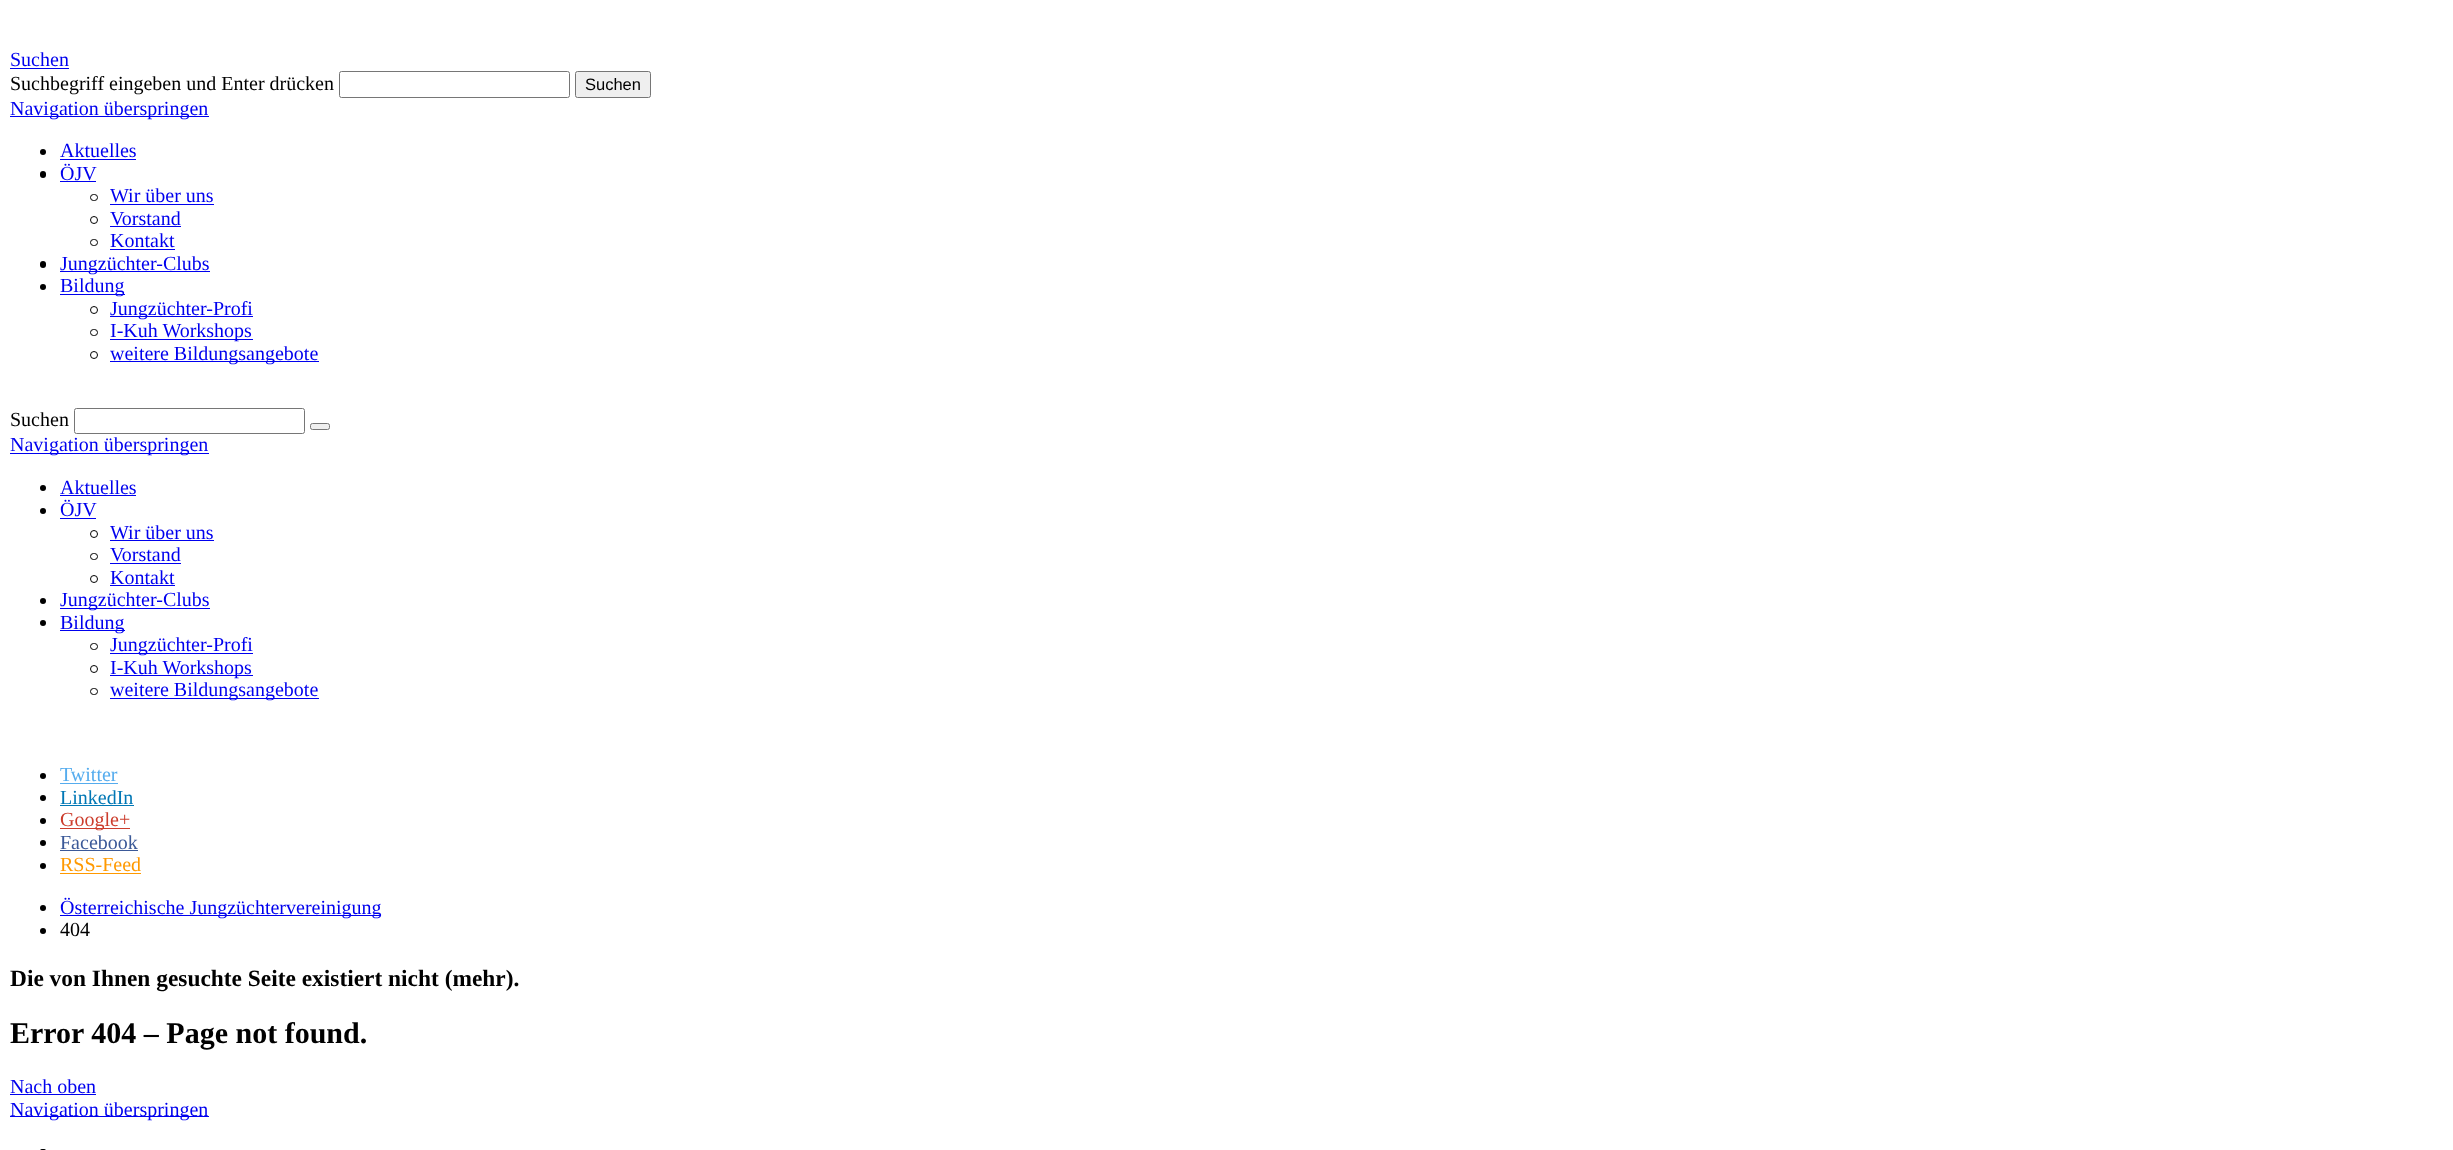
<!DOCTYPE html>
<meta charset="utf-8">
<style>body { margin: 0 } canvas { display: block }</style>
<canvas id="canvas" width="2453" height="1150"></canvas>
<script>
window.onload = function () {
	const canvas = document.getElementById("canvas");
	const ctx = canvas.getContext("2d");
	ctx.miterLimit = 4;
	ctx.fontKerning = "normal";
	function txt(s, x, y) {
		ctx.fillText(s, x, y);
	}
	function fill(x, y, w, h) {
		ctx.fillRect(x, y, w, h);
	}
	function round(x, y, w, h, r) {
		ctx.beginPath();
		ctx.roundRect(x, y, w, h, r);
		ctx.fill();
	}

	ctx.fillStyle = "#FFFFFF";
	fill(0, 0, 2453, 1150);
	ctx.fillStyle = "#0000EE";
	fill(10, 68, 59, 1);
	ctx.beginPath();
	ctx.roundRect(339.5, 71.5, 230, 26, 2);
	ctx.strokeStyle = "#767676";
	ctx.stroke();
	ctx.fillStyle = "#EFEFEF";
	ctx.beginPath();
	ctx.roundRect(575.5, 71.5, 75, 26, 2);
	ctx.fill();
	ctx.stroke();
	ctx.fillStyle = "#0000EE";
	fill(10, 116, 199, 1);
	ctx.fillStyle = "#000000";
	ctx.beginPath();
	ctx.arc(43, 152, 3, 0, Math.PI * 2);
	ctx.fill();
	ctx.fillStyle = "#0000EE";
	fill(60, 159, 76, 1);
	ctx.fillStyle = "#000000";
	round(40, 171, 6, 7, 3);
	ctx.fillStyle = "#0000EE";
	fill(60, 181, 36, 1);
	ctx.beginPath();
	ctx.roundRect(90.5, 194.5, 7, 6, 3);
	ctx.strokeStyle = "#000000";
	ctx.stroke();
	fill(110, 204, 104, 1);
	ctx.beginPath();
	ctx.arc(94, 220, 3.5, 0, Math.PI * 2);
	ctx.stroke();
	fill(110, 226, 71, 1);
	ctx.beginPath();
	ctx.roundRect(90.5, 239.5, 7, 6, 3);
	ctx.stroke();
	fill(110, 249, 65, 1);
	ctx.fillStyle = "#000000";
	round(40, 261, 6, 7, 3);
	ctx.fillStyle = "#0000EE";
	fill(60, 271, 150, 1);
	ctx.fillStyle = "#000000";
	ctx.beginPath();
	ctx.arc(43, 287, 3, 0, Math.PI * 2);
	ctx.fill();
	ctx.fillStyle = "#0000EE";
	fill(60, 294, 65, 1);
	ctx.beginPath();
	ctx.arc(94, 310, 3.5, 0, Math.PI * 2);
	ctx.stroke();
	fill(110, 316, 143, 1);
	ctx.beginPath();
	ctx.roundRect(90.5, 329.5, 7, 6, 3);
	ctx.stroke();
	fill(110, 339, 143, 1);
	ctx.beginPath();
	ctx.arc(94, 355, 3.5, 0, Math.PI * 2);
	ctx.stroke();
	fill(110, 361, 209, 1);
	ctx.beginPath();
	ctx.roundRect(74.5, 408.5, 230, 25, 2);
	ctx.strokeStyle = "#767676";
	ctx.stroke();
	ctx.fillStyle = "#EFEFEF";
	ctx.beginPath();
	ctx.roundRect(310.5, 423.5, 19, 6, 2);
	ctx.fill();
	ctx.stroke();
	ctx.fillStyle = "#0000EE";
	fill(10, 453, 199, 1);
	ctx.fillStyle = "#000000";
	ctx.beginPath();
	ctx.arc(43, 488, 3, 0, Math.PI * 2);
	ctx.fill();
	ctx.fillStyle = "#0000EE";
	fill(60, 495, 76, 1);
	ctx.fillStyle = "#000000";
	ctx.beginPath();
	ctx.arc(43, 511, 3, 0, Math.PI * 2);
	ctx.fill();
	ctx.fillStyle = "#0000EE";
	fill(60, 518, 36, 1);
	ctx.beginPath();
	ctx.arc(94, 534, 3.5, 0, Math.PI * 2);
	ctx.strokeStyle = "#000000";
	ctx.stroke();
	fill(110, 540, 104, 1);
	ctx.beginPath();
	ctx.roundRect(90.5, 553.5, 7, 6, 3);
	ctx.stroke();
	fill(110, 563, 71, 1);
	ctx.beginPath();
	ctx.arc(94, 579, 3.5, 0, Math.PI * 2);
	ctx.stroke();
	fill(110, 585, 65, 1);
	ctx.fillStyle = "#000000";
	ctx.beginPath();
	ctx.arc(43, 601, 3, 0, Math.PI * 2);
	ctx.fill();
	ctx.fillStyle = "#0000EE";
	fill(60, 608, 150, 1);
	ctx.fillStyle = "#000000";
	ctx.beginPath();
	ctx.arc(43, 623, 3, 0, Math.PI * 2);
	ctx.fill();
	ctx.fillStyle = "#0000EE";
	fill(60, 630, 65, 1);
	ctx.beginPath();
	ctx.roundRect(90.5, 643.5, 7, 6, 3);
	ctx.stroke();
	fill(110, 653, 143, 1);
	ctx.beginPath();
	ctx.arc(94, 669, 3.5, 0, Math.PI * 2);
	ctx.stroke();
	fill(110, 675, 143, 1);
	ctx.beginPath();
	ctx.roundRect(90.5, 688.5, 7, 6, 3);
	ctx.stroke();
	fill(110, 698, 209, 1);
	ctx.fillStyle = "#000000";
	ctx.beginPath();
	ctx.arc(43, 776, 3, 0, Math.PI * 2);
	ctx.fill();
	ctx.fillStyle = "#55ACEE";
	fill(60, 783, 58, 1);
	ctx.fillStyle = "#000000";
	ctx.beginPath();
	ctx.arc(43, 798, 3, 0, Math.PI * 2);
	ctx.fill();
	ctx.fillStyle = "#0077B5";
	fill(60, 805, 74, 1);
	ctx.fillStyle = "#000000";
	ctx.beginPath();
	ctx.arc(43, 821, 3, 0, Math.PI * 2);
	ctx.fill();
	ctx.fillStyle = "#CC3D2D";
	fill(60, 828, 70, 1);
	ctx.fillStyle = "#000000";
	ctx.beginPath();
	ctx.arc(43, 843, 3, 0, Math.PI * 2);
	ctx.fill();
	ctx.fillStyle = "#3B5998";
	fill(60, 850, 78, 1);
	ctx.fillStyle = "#000000";
	ctx.beginPath();
	ctx.arc(43, 866, 3, 0, Math.PI * 2);
	ctx.fill();
	ctx.fillStyle = "#FF9900";
	fill(60, 873, 81, 1);
	ctx.fillStyle = "#000000";
	ctx.beginPath();
	ctx.arc(43, 908, 3, 0, Math.PI * 2);
	ctx.fill();
	ctx.fillStyle = "#0000EE";
	fill(60, 915, 321, 1);
	ctx.fillStyle = "#000000";
	ctx.beginPath();
	ctx.arc(43, 931, 3, 0, Math.PI * 2);
	ctx.fill();
	ctx.fillStyle = "#0000EE";
	fill(10, 1094, 86, 1);
	fill(10, 1116, 199, 1);
	ctx.fillStyle = "#000000";
	round(40, 1149, 6, 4, 3);
	ctx.font = "20px Liberation Serif";
	ctx.fillStyle = "#0000EE";
	txt("Suchen", 10, 66);
	ctx.fillStyle = "#000000";
	txt("Suchbegriff eingeben und Enter drücken", 10, 90);
	ctx.font = "16.5px Liberation Sans";
	txt("Suchen", 585, 90);
	ctx.font = "20px Liberation Serif";
	ctx.fillStyle = "#0000EE";
	txt("Navigation überspringen", 10, 115);
	txt("Aktuelles", 60, 157);
	txt("ÖJV", 60, 180);
	txt("Wir über uns", 110, 202);
	txt("Vorstand", 110, 225);
	txt("Kontakt", 110, 247);
	txt("Jungzüchter-Clubs", 60, 270);
	txt("Bildung", 60, 292);
	txt("Jungzüchter-Profi", 110, 315);
	txt("I-Kuh Workshops", 110, 337);
	txt("weitere Bildungsangebote", 110, 360);
	ctx.fillStyle = "#000000";
	txt("Suchen", 10, 426);
	ctx.fillStyle = "#0000EE";
	txt("Navigation überspringen", 10, 451);
	txt("Aktuelles", 60, 494);
	txt("ÖJV", 60, 516);
	txt("Wir über uns", 110, 539);
	txt("Vorstand", 110, 561);
	txt("Kontakt", 110, 584);
	txt("Jungzüchter-Clubs", 60, 606);
	txt("Bildung", 60, 629);
	txt("Jungzüchter-Profi", 110, 651);
	txt("I-Kuh Workshops", 110, 674);
	txt("weitere Bildungsangebote", 110, 696);
	ctx.fillStyle = "#55ACEE";
	txt("Twitter", 60, 781);
	ctx.fillStyle = "#0077B5";
	txt("LinkedIn", 60, 804);
	ctx.fillStyle = "#CC3D2D";
	txt("Google+", 60, 826);
	ctx.fillStyle = "#3B5998";
	txt("Facebook", 60, 849);
	ctx.fillStyle = "#FF9900";
	txt("RSS-Feed", 60, 871);
	ctx.fillStyle = "#0000EE";
	txt("Österreichische Jungzüchtervereinigung", 60, 914);
	ctx.fillStyle = "#000000";
	txt("404", 60, 936);
	ctx.font = "bold 23.4px Liberation Serif";
	txt("Die von Ihnen gesuchte Seite existiert nicht (mehr).", 10, 986);
	ctx.font = "bold 30px Liberation Serif";
	txt("Error 404 – Page not found.", 10, 1043);
	ctx.font = "20px Liberation Serif";
	ctx.fillStyle = "#0000EE";
	txt("Nach oben", 10, 1093);
	txt("Navigation überspringen", 10, 1116);
};
</script>
